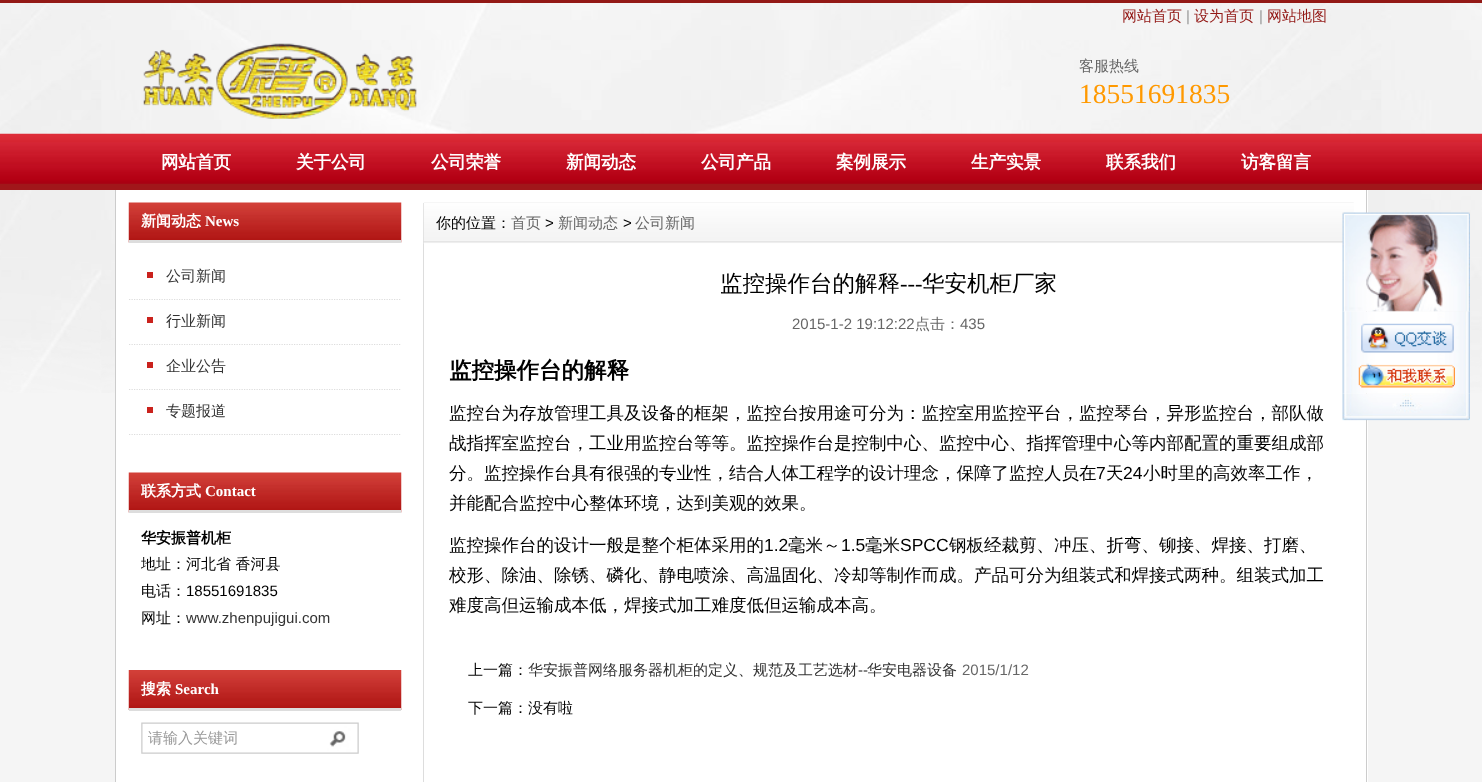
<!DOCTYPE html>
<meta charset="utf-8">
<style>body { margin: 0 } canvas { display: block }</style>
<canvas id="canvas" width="1482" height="782"></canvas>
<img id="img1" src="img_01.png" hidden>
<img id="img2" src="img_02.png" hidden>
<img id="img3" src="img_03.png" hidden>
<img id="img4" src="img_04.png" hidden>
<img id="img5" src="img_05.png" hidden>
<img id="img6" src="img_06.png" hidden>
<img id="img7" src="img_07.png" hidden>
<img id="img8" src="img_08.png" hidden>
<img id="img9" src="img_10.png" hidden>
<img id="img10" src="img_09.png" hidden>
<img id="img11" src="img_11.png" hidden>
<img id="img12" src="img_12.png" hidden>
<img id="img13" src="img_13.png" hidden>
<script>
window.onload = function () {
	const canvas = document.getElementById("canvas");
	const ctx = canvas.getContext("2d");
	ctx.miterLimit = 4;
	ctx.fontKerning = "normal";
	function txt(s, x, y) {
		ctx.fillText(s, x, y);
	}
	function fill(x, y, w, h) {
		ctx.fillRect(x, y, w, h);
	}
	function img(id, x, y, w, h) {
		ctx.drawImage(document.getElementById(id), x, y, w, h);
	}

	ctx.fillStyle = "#F5F5F5";
	fill(0, 0, 1482, 782);
	img("img1", 0, 3, 1482, 390);
	ctx.fillStyle = "#931916";
	fill(0, 0, 1482, 3);
	img("img2", 143, 43, 274, 76);
	ctx.fillStyle = "#A0171A";
	fill(0, 183, 1482, 7);
	img("img3", 0, 133, 1482, 51);
	ctx.fillStyle = "#FFFFFF";
	fill(116, 190, 1252, 592);
	ctx.fillStyle = "#CCCCCC";
	fill(1366, 190, 1, 592);
	fill(115, 190, 1, 592);
	img("img4", 128, 202, 274, 41);
	ctx.fillStyle = "#DDDDDD";
	fill(129, 240, 272, 3);
	ctx.fillStyle = "#CA221D";
	fill(147, 272, 6, 6);
	ctx.beginPath();
	ctx.moveTo(129, 299.5);
	ctx.lineTo(401, 299.5);
	ctx.strokeStyle = "#DDDDDD";
	ctx.lineWidth = 1.2;
	ctx.setLineDash([1.25, 1.25]);
	ctx.stroke();
	fill(147, 317, 6, 6);
	ctx.beginPath();
	ctx.moveTo(129, 344.5);
	ctx.lineTo(401, 344.5);
	ctx.stroke();
	fill(147, 362, 6, 6);
	ctx.beginPath();
	ctx.moveTo(129, 389.5);
	ctx.lineTo(401, 389.5);
	ctx.stroke();
	fill(147, 407, 6, 6);
	ctx.beginPath();
	ctx.moveTo(129, 434.5);
	ctx.lineTo(401, 434.5);
	ctx.stroke();
	img("img5", 128, 472, 274, 41);
	ctx.fillStyle = "#DDDDDD";
	fill(129, 510, 272, 3);
	img("img6", 128, 670, 274, 40);
	fill(129, 708, 272, 3);
	img("img7", 141, 722, 218, 32);
	fill(423, 203, 1, 579);
	img("img8", 423, 202, 931, 42);
	img("img9", 1342, 311, 128, 83);
	img("img10", 1342, 212, 128, 100);
	img("img11", 1361, 323, 93, 30);
	img("img12", 1358, 363, 97, 25);
	img("img13", 1342, 393, 128, 28);
	ctx.font = "500 15px WenQuanYi Zen Hei";
	ctx.fillStyle = "#931916";
	txt("网站首页", 1122, 21);
	ctx.font = "15px Liberation Sans";
	ctx.fillStyle = "#999999";
	txt("|", 1186, 21);
	ctx.font = "500 15px WenQuanYi Zen Hei";
	ctx.fillStyle = "#931916";
	txt("设为首页", 1194, 21);
	ctx.font = "15px Liberation Sans";
	ctx.fillStyle = "#999999";
	txt("|", 1259, 21);
	ctx.font = "500 15px WenQuanYi Zen Hei";
	ctx.fillStyle = "#931916";
	txt("网站地图", 1267, 21);
	ctx.fillStyle = "#666666";
	txt("客服热线", 1079, 71);
	ctx.font = "27.5px Liberation Serif";
	ctx.fillStyle = "#FF9900";
	txt("18551691835", 1079, 103);
	ctx.font = "bold 17.5px WenQuanYi Zen Hei";
	ctx.fillStyle = "#FFFFFF";
	txt("网站首页", 161, 168);
	txt("关于公司", 296, 168);
	txt("公司荣誉", 431, 168);
	txt("新闻动态", 566, 168);
	txt("公司产品", 701, 168);
	txt("案例展示", 836, 168);
	txt("生产实景", 971, 168);
	txt("联系我们", 1106, 168);
	txt("访客留言", 1241, 168);
	ctx.font = "bold 15px WenQuanYi Zen Hei";
	txt("新闻动态", 141, 226);
	ctx.font = "bold 15px Liberation Serif";
	txt("News", 205, 226);
	ctx.font = "500 15px WenQuanYi Zen Hei";
	ctx.fillStyle = "#333333";
	txt("公司新闻", 166, 281);
	txt("行业新闻", 166, 326);
	txt("企业公告", 166, 371);
	txt("专题报道", 166, 416);
	ctx.font = "bold 15px WenQuanYi Zen Hei";
	ctx.fillStyle = "#FFFFFF";
	txt("联系方式", 141, 496);
	ctx.font = "bold 15px Liberation Serif";
	txt("Contact", 205, 496);
	ctx.font = "bold 15px WenQuanYi Zen Hei";
	ctx.fillStyle = "#000000";
	txt("华安振普机柜", 141, 543);
	ctx.font = "500 15px WenQuanYi Zen Hei";
	txt("地址：河北省 香河县", 141, 569);
	txt("电话：", 141, 596);
	ctx.font = "15px Liberation Sans";
	txt("18551691835", 186, 596);
	ctx.font = "500 15px WenQuanYi Zen Hei";
	txt("网址：", 141, 623);
	ctx.font = "15px Liberation Sans";
	ctx.fillStyle = "#333333";
	txt("www.zhenpujigui.com", 186, 623);
	ctx.font = "bold 15px WenQuanYi Zen Hei";
	ctx.fillStyle = "#FFFFFF";
	txt("搜索", 141, 694);
	ctx.font = "bold 15px Liberation Serif";
	txt("Search", 175, 694);
	ctx.font = "500 15px WenQuanYi Zen Hei";
	ctx.fillStyle = "#999999";
	txt("请输入关键词", 148, 743);
	ctx.fillStyle = "#000000";
	txt("你的位置：", 436, 228);
	ctx.fillStyle = "#666666";
	txt("首页", 511, 228);
	ctx.font = "15px Liberation Sans";
	ctx.fillStyle = "#000000";
	txt(">", 545, 228);
	ctx.font = "500 15px WenQuanYi Zen Hei";
	ctx.fillStyle = "#666666";
	txt("新闻动态", 558, 228);
	ctx.font = "15px Liberation Sans";
	ctx.fillStyle = "#000000";
	txt(">", 623, 228);
	ctx.font = "500 15px WenQuanYi Zen Hei";
	ctx.fillStyle = "#666666";
	txt("公司新闻", 635, 228);
	ctx.font = "500 22.5px WenQuanYi Zen Hei";
	ctx.fillStyle = "#000000";
	txt("监控操作台的解释", 720, 291);
	ctx.font = "22.5px Liberation Serif";
	txt("---", 900, 291);
	ctx.font = "500 22.5px WenQuanYi Zen Hei";
	txt("华安机柜厂家", 922, 291);
	ctx.font = "15px Liberation Sans";
	ctx.fillStyle = "#666666";
	txt("2015-1-2 19:12:22", 792, 329);
	ctx.font = "500 15px WenQuanYi Zen Hei";
	txt("点击：", 915, 329);
	ctx.font = "15px Liberation Sans";
	txt("435", 960, 329);
	ctx.font = "bold 22.5px WenQuanYi Zen Hei";
	ctx.fillStyle = "#000000";
	txt("监控操作台的解释", 449, 378);
	ctx.font = "500 17.5px WenQuanYi Zen Hei";
	txt("监控台为存放管理工具及设备的框架，监控台按用途可分为：监控室用监控平台，监控琴台，异形监控台，部队做", 449, 419);
	txt("战指挥室监控台，工业用监控台等等。监控操作台是控制中心、监控中心、指挥管理中心等内部配置的重要组成部", 449, 449);
	txt("分。监控操作台具有很强的专业性，结合人体工程学的设计理念，保障了监控人员在", 449, 479);
	ctx.font = "17.5px Liberation Sans";
	txt("7", 1096, 479);
	ctx.font = "500 17.5px WenQuanYi Zen Hei";
	txt("天", 1106, 479);
	ctx.font = "17.5px Liberation Sans";
	txt("24", 1123, 479);
	ctx.font = "500 17.5px WenQuanYi Zen Hei";
	txt("小时里的高效率工作，", 1143, 479);
	txt("并能配合监控中心整体环境，达到美观的效果。", 449, 509);
	txt("监控操作台的设计一般是整个柜体采用的", 449, 551);
	ctx.font = "17.5px Liberation Sans";
	txt("1.2", 764, 551);
	ctx.font = "500 17.5px WenQuanYi Zen Hei";
	txt("毫米～", 788, 551);
	ctx.font = "17.5px Liberation Sans";
	txt("1.5", 841, 551);
	ctx.font = "500 17.5px WenQuanYi Zen Hei";
	txt("毫米", 865, 551);
	ctx.font = "17.5px Liberation Sans";
	txt("SPCC", 900, 551);
	ctx.font = "500 17.5px WenQuanYi Zen Hei";
	txt("钢板经裁剪、冲压、折弯、铆接、焊接、打磨、", 949, 551);
	txt("校形、除油、除锈、磷化、静电喷涂、高温固化、冷却等制作而成。产品可分为组装式和焊接式两种。组装式加工", 449, 581);
	txt("难度高但运输成本低，焊接式加工难度低但运输成本高。", 449, 611);
	ctx.font = "500 15px WenQuanYi Zen Hei";
	txt("上一篇：", 468, 675);
	ctx.fillStyle = "#333333";
	txt("华安振普网络服务器机柜的定义、规范及工艺选材", 528, 675);
	ctx.font = "15px Liberation Sans";
	txt("--", 858, 675);
	ctx.font = "500 15px WenQuanYi Zen Hei";
	txt("华安电器设备", 867, 675);
	ctx.font = "15px Liberation Sans";
	ctx.fillStyle = "#666666";
	txt("2015/1/12", 962, 675);
	ctx.font = "500 15px WenQuanYi Zen Hei";
	ctx.fillStyle = "#000000";
	txt("下一篇：没有啦", 468, 713);
};
</script>
